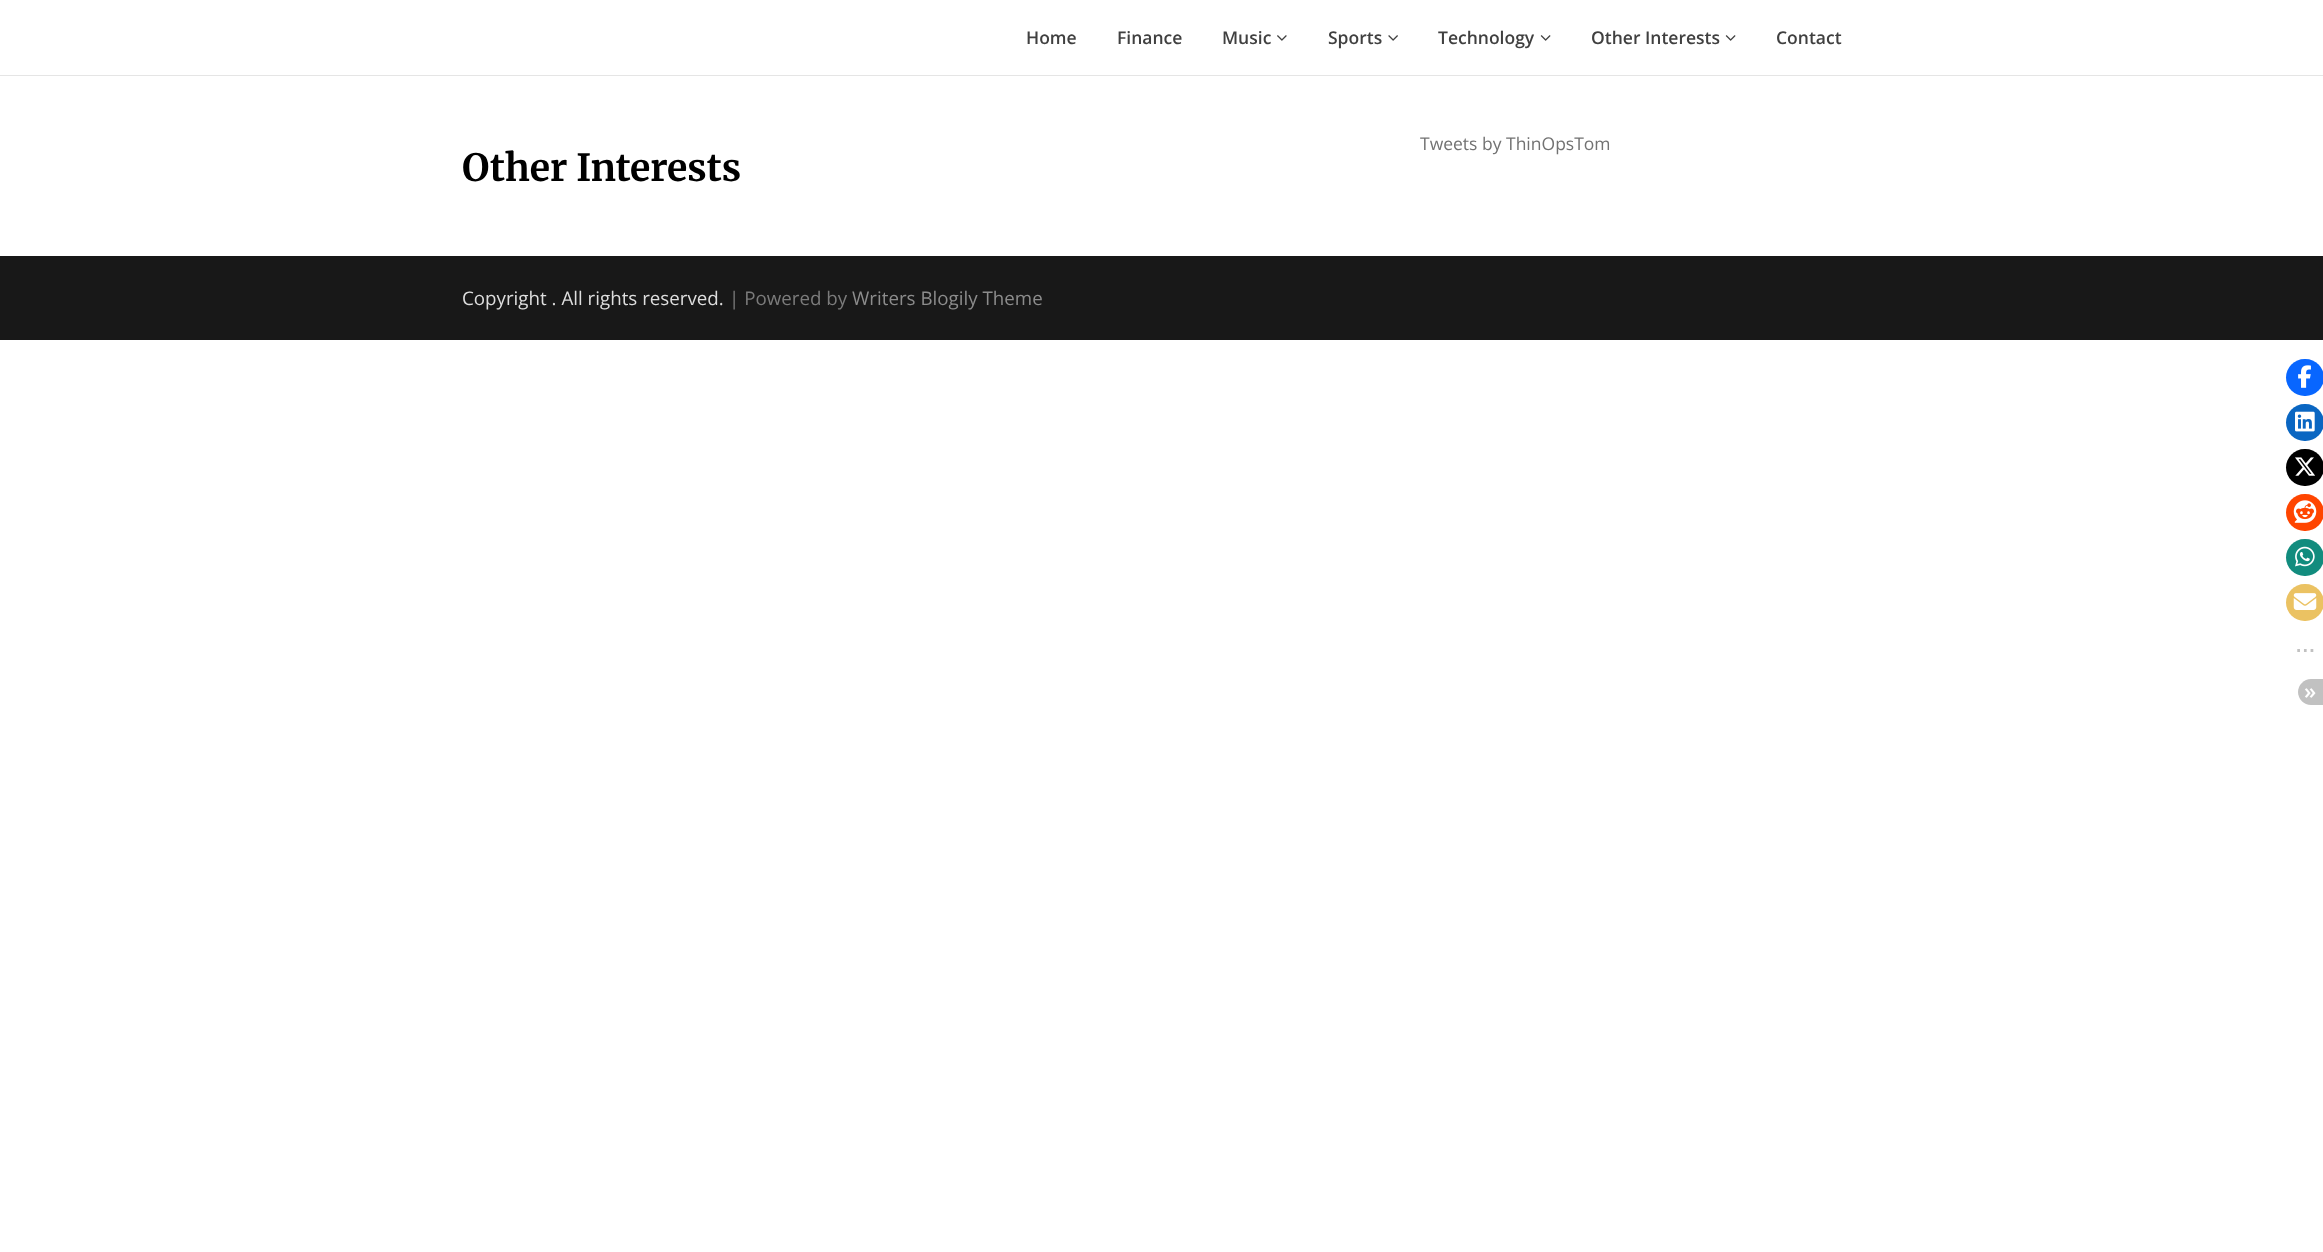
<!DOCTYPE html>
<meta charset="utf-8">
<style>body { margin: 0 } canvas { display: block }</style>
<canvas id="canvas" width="2323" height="1252"></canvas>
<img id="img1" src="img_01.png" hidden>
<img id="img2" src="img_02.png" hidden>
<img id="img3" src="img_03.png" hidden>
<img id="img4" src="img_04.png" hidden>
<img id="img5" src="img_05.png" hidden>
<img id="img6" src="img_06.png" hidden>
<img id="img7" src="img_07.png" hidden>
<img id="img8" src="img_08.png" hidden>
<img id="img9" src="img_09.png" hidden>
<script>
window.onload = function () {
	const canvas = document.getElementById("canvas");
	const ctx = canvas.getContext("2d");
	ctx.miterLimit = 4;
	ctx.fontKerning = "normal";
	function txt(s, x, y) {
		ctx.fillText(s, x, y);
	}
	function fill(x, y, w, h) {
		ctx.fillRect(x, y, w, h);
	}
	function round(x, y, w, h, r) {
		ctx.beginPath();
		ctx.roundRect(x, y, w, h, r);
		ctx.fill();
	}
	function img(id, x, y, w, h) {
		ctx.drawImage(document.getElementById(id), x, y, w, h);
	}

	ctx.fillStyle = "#FFFFFF";
	fill(0, 0, 2323, 1252);
	ctx.save();
	ctx.beginPath();
	ctx.rect(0, 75, 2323, 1);
	ctx.clip();
	ctx.fillStyle = "rgba(0, 0, 0, 0.1)";
	ctx.filter = "blur(0.5px)";
	ctx.beginPath();
	ctx.rect(0, 1, 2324, 75);
	ctx.fill();
	ctx.filter = "none";
	ctx.restore();
	img("img1", 1277, 35, 10, 6);
	img("img2", 1388, 35, 10, 6);
	img("img3", 1540, 35, 11, 6);
	img("img3", 1725, 35, 11, 6);
	ctx.fillStyle = "#181818";
	fill(0, 256, 2323, 84);
	ctx.fillStyle = "#0866FF";
	round(2286, 359, 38, 37, 18.5);
	img("img4", 2298, 365, 13, 23);
	ctx.fillStyle = "#0A66C2";
	round(2286, 404, 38, 37, 18.5);
	img("img5", 2295, 411, 20, 21);
	ctx.fillStyle = "#000000";
	round(2286, 449, 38, 37, 18.5);
	img("img6", 2295, 457, 20, 19);
	ctx.fillStyle = "#FF4500";
	round(2286, 494, 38, 37, 18.5);
	img("img7", 2293, 500, 24, 23);
	ctx.fillStyle = "#128C7E";
	round(2286, 539, 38, 37, 18.5);
	img("img8", 2295, 546, 20, 21);
	ctx.fillStyle = "#EBC262";
	round(2286, 584, 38, 37, 18.5);
	img("img9", 2293, 593, 24, 17);
	ctx.fillStyle = "#C1C1C1";
	ctx.beginPath();
	ctx.moveTo(2311, 679);
	ctx.lineTo(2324, 679);
	ctx.lineTo(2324, 705);
	ctx.lineTo(2311, 705);
	ctx.bezierCurveTo(2304, 705, 2298, 699, 2298, 692);
	ctx.bezierCurveTo(2298, 685, 2304, 679, 2311, 679);
	ctx.closePath();
	ctx.fill();
	ctx.font = "600 17.5px Open Sans";
	ctx.fillStyle = "#404040";
	txt("Home", 1026, 44);
	txt("Finance", 1117, 44);
	txt("Music", 1222, 44);
	txt("Sports", 1328, 44);
	txt("Technology", 1438, 44);
	txt("Other Interests", 1591, 44);
	txt("Contact", 1776, 44);
	ctx.font = "17.5px Open Sans";
	ctx.fillStyle = "#727272";
	txt("Tweets by ThinOpsTom", 1420, 150);
	ctx.font = "bold 37.5px Merriweather";
	ctx.fillStyle = "#000000";
	txt("Other Interests", 462, 181);
	ctx.font = "18.75px Open Sans";
	ctx.fillStyle = "#DEDEDE";
	txt("Copyright . All rights reserved.", 462, 305);
	ctx.fillStyle = "#7B7B7B";
	txt("| Powered by", 729, 305);
	ctx.fillStyle = "#8C8C8C";
	txt("Writers Blogily Theme", 852, 305);
	ctx.font = "bold 20px DejaVu Sans";
	ctx.fillStyle = "#C1C1C1";
	txt("⋯", 2295, 657);
	ctx.font = "600 22px Open Sans";
	ctx.fillStyle = "#FFFFFF";
	txt("»", 2304, 699);
};
</script>
